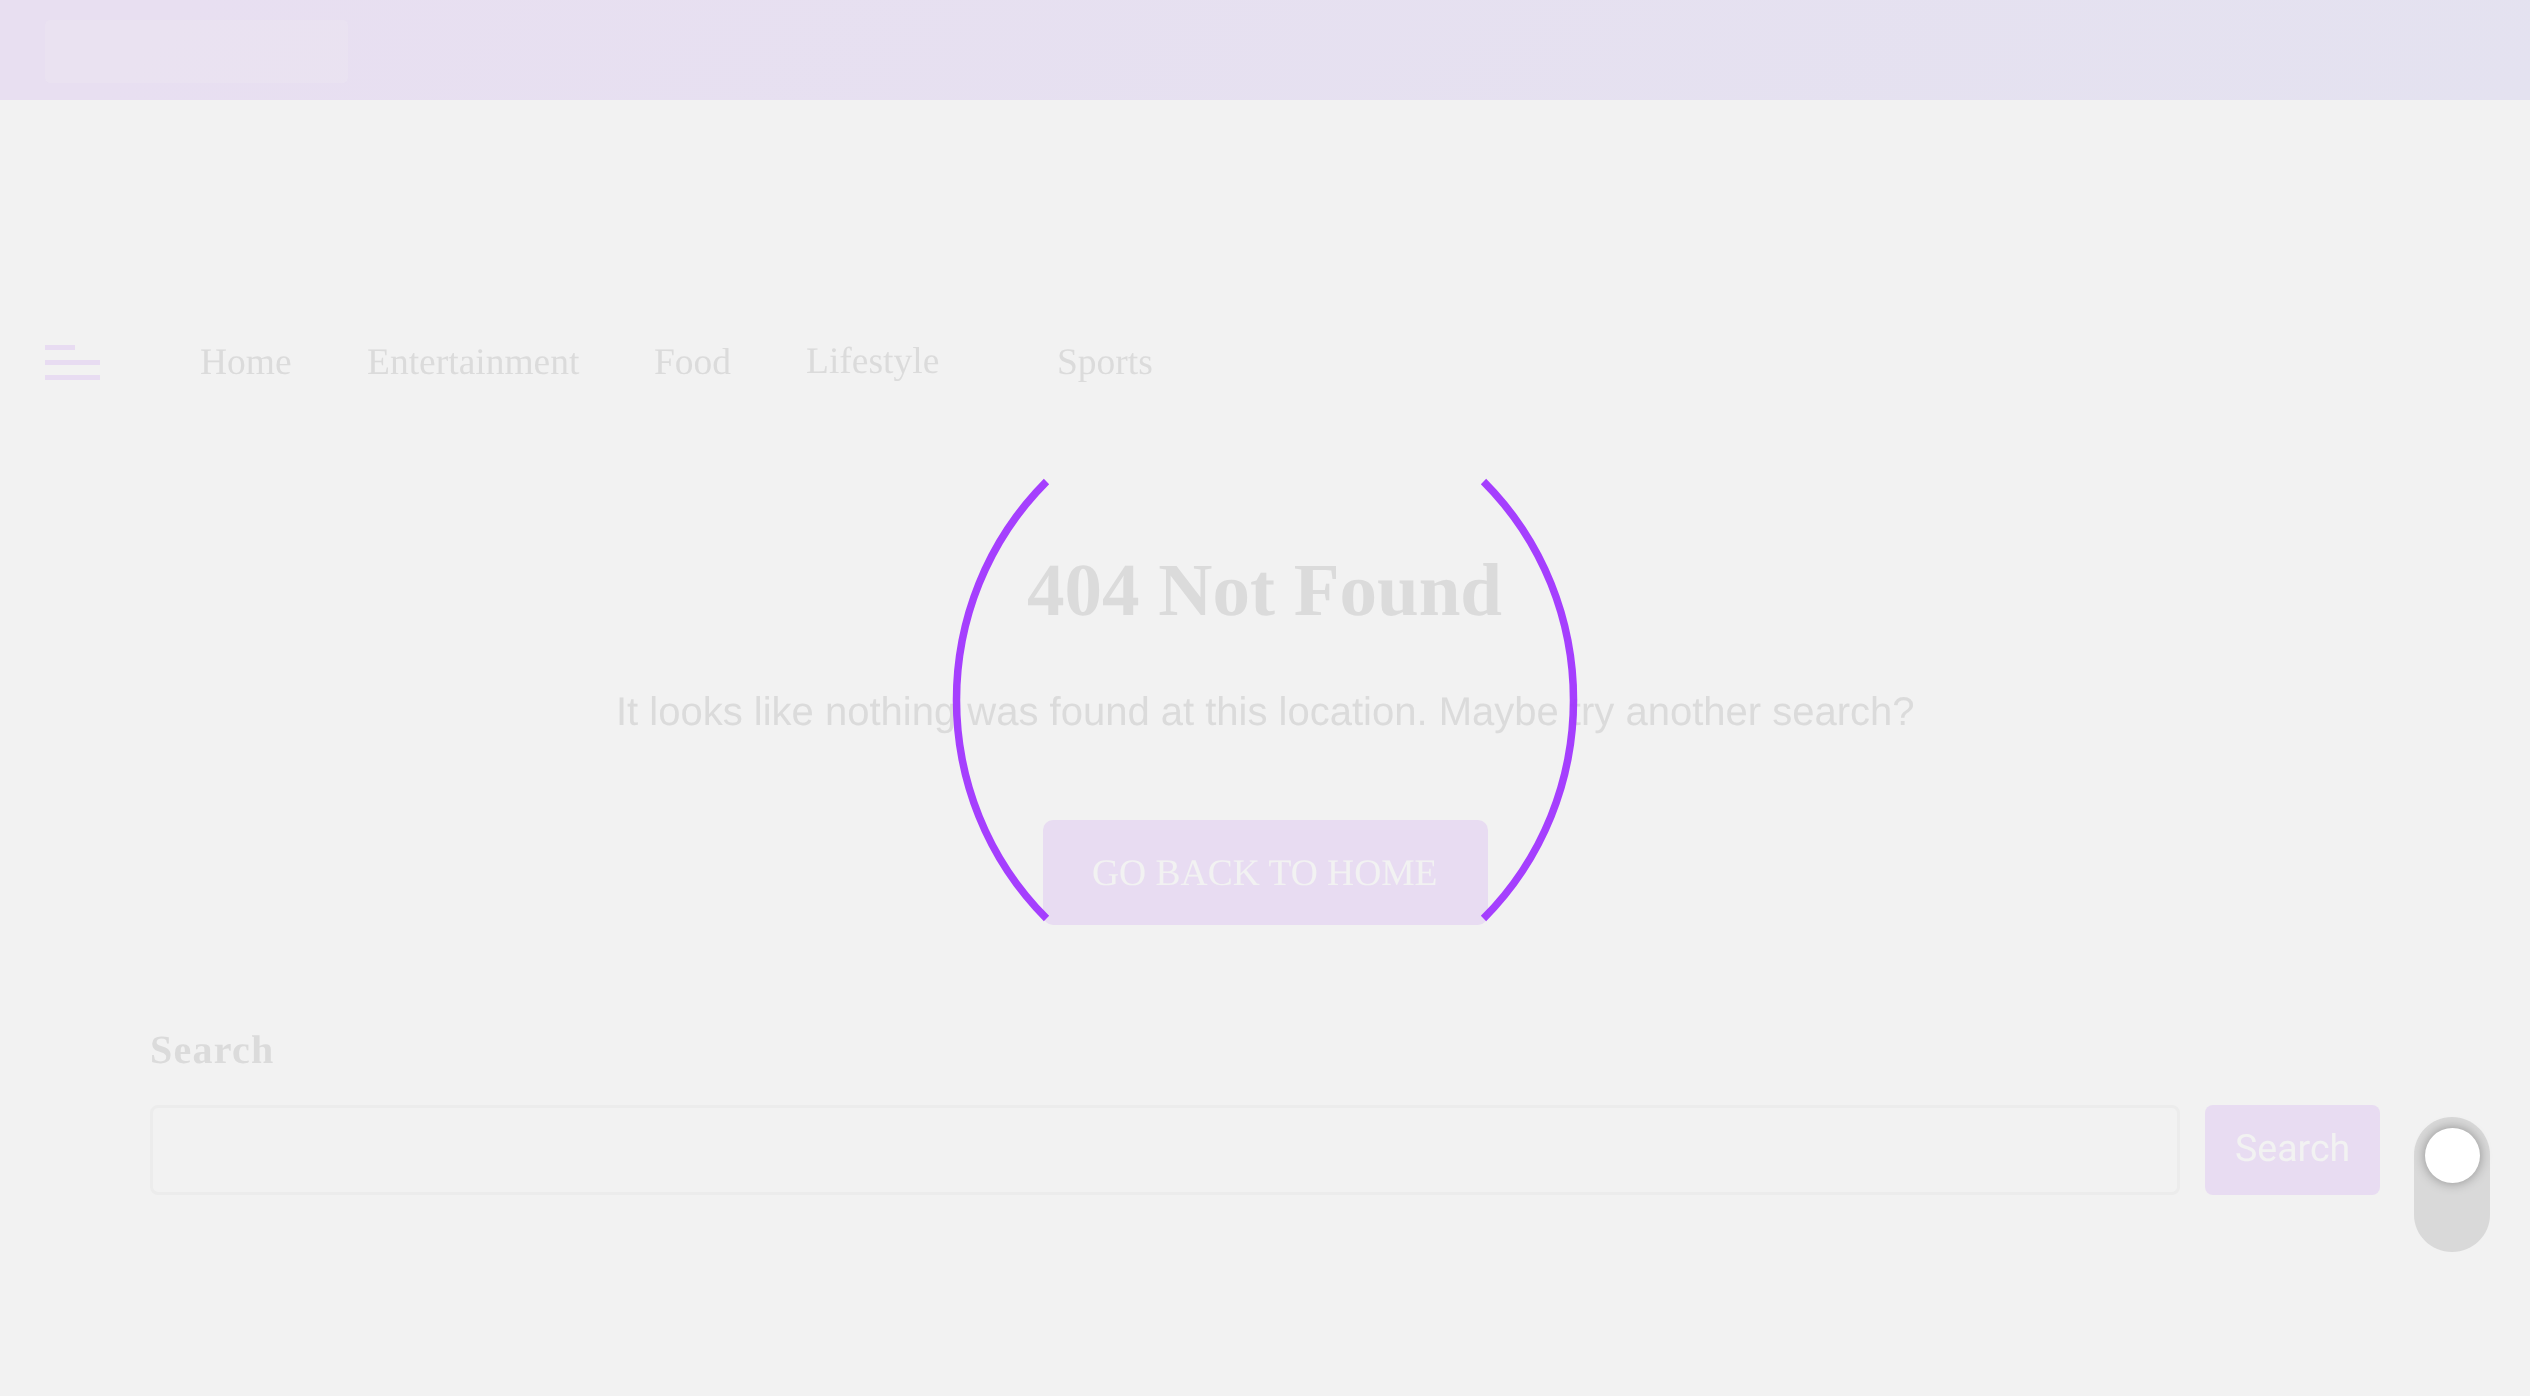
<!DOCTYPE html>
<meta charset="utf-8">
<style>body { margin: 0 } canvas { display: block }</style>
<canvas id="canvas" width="2530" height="1396"></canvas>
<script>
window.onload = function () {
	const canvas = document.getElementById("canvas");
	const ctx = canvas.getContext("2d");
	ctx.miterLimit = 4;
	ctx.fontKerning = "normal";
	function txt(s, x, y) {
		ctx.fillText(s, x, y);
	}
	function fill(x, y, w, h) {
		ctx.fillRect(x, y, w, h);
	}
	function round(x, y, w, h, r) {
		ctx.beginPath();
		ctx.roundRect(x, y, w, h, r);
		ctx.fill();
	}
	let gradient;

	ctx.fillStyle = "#F2F2F2";
	fill(0, 0, 2530, 1396);
	gradient = ctx.createLinearGradient(607, -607, 1923, 708);
	gradient.addColorStop(0.07, "#E8DFF1");
	gradient.addColorStop(1, "#E4E2F0");
	ctx.fillStyle = gradient;
	fill(0, 0, 2530, 100);
	ctx.fillStyle = "rgba(242, 242, 242, 0.17)";
	round(45, 20, 303, 63, 5);
	ctx.fillStyle = "#E8DCF2";
	fill(45, 345, 30, 5);
	fill(45, 360, 55, 5);
	fill(45, 375, 55, 5);
	round(1043, 820, 445, 105, 10);
	ctx.beginPath();
	ctx.roundRect(151.5, 1106.5, 2027, 87, 6.5);
	ctx.strokeStyle = "#ECECEC";
	ctx.lineWidth = 3;
	ctx.stroke();
	round(2205, 1105, 175, 90, 8);
	ctx.fillStyle = "#D9D9D9";
	ctx.beginPath();
	ctx.moveTo(2490, 1155);
	ctx.lineTo(2490, 1215);
	ctx.bezierCurveTo(2490, 1235, 2473, 1252, 2452, 1252);
	ctx.bezierCurveTo(2431, 1252, 2414, 1235, 2414, 1215);
	ctx.lineTo(2414, 1155);
	ctx.bezierCurveTo(2414, 1134, 2431, 1117, 2452, 1117);
	ctx.bezierCurveTo(2473, 1117, 2490, 1134, 2490, 1155);
	ctx.closePath();
	ctx.fill();
	ctx.fillStyle = "rgba(0, 0, 0, 0.35)";
	ctx.filter = "blur(6px)";
	ctx.beginPath();
	ctx.roundRect(2425, 1128, 55, 55, 27.5);
	ctx.fill();
	ctx.filter = "none";
	ctx.fillStyle = "#FFFFFF";
	ctx.beginPath();
	ctx.arc(2452.5, 1155.5, 27.5, 0, Math.PI * 2);
	ctx.fill();
	ctx.font = "37.5px Liberation Serif";
	ctx.fillStyle = "#DBDBDB";
	txt("Home", 200, 374);
	txt("Entertainment", 367, 374);
	txt("Food", 654, 374);
	txt("Lifestyle", 806, 373);
	txt("Sports", 1057, 374);
	ctx.font = "bold 75px Liberation Serif";
	txt("404 Not Found", 1027, 615);
	ctx.font = "40px Liberation Sans";
	txt("It looks like nothing was found at this location. Maybe try another search?", 616, 725);
	ctx.beginPath();
	ctx.moveTo(1046.5, 918.5);
	ctx.bezierCurveTo(926.5, 798, 926.5, 602, 1046.5, 481.5);
	ctx.strokeStyle = "rgba(156, 43, 255, 0.9)";
	ctx.lineWidth = 7.5;
	ctx.stroke();
	ctx.beginPath();
	ctx.moveTo(1483.5, 481.5);
	ctx.bezierCurveTo(1603.5, 602, 1603.5, 798, 1483.5, 918.5);
	ctx.stroke();
	ctx.font = "37.5px Liberation Serif";
	ctx.fillStyle = "#F2F2F2";
	txt("GO BACK TO HOME", 1092, 885);
	ctx.letterSpacing = "1.25px";
	ctx.font = "bold 40px Liberation Serif";
	ctx.fillStyle = "#DBDBDB";
	txt("Search", 150, 1063);
	ctx.letterSpacing = "0px";
	ctx.font = "37.5px Roboto";
	ctx.fillStyle = "#F2F2F2";
	txt("Search", 2235, 1161);
};
</script>
